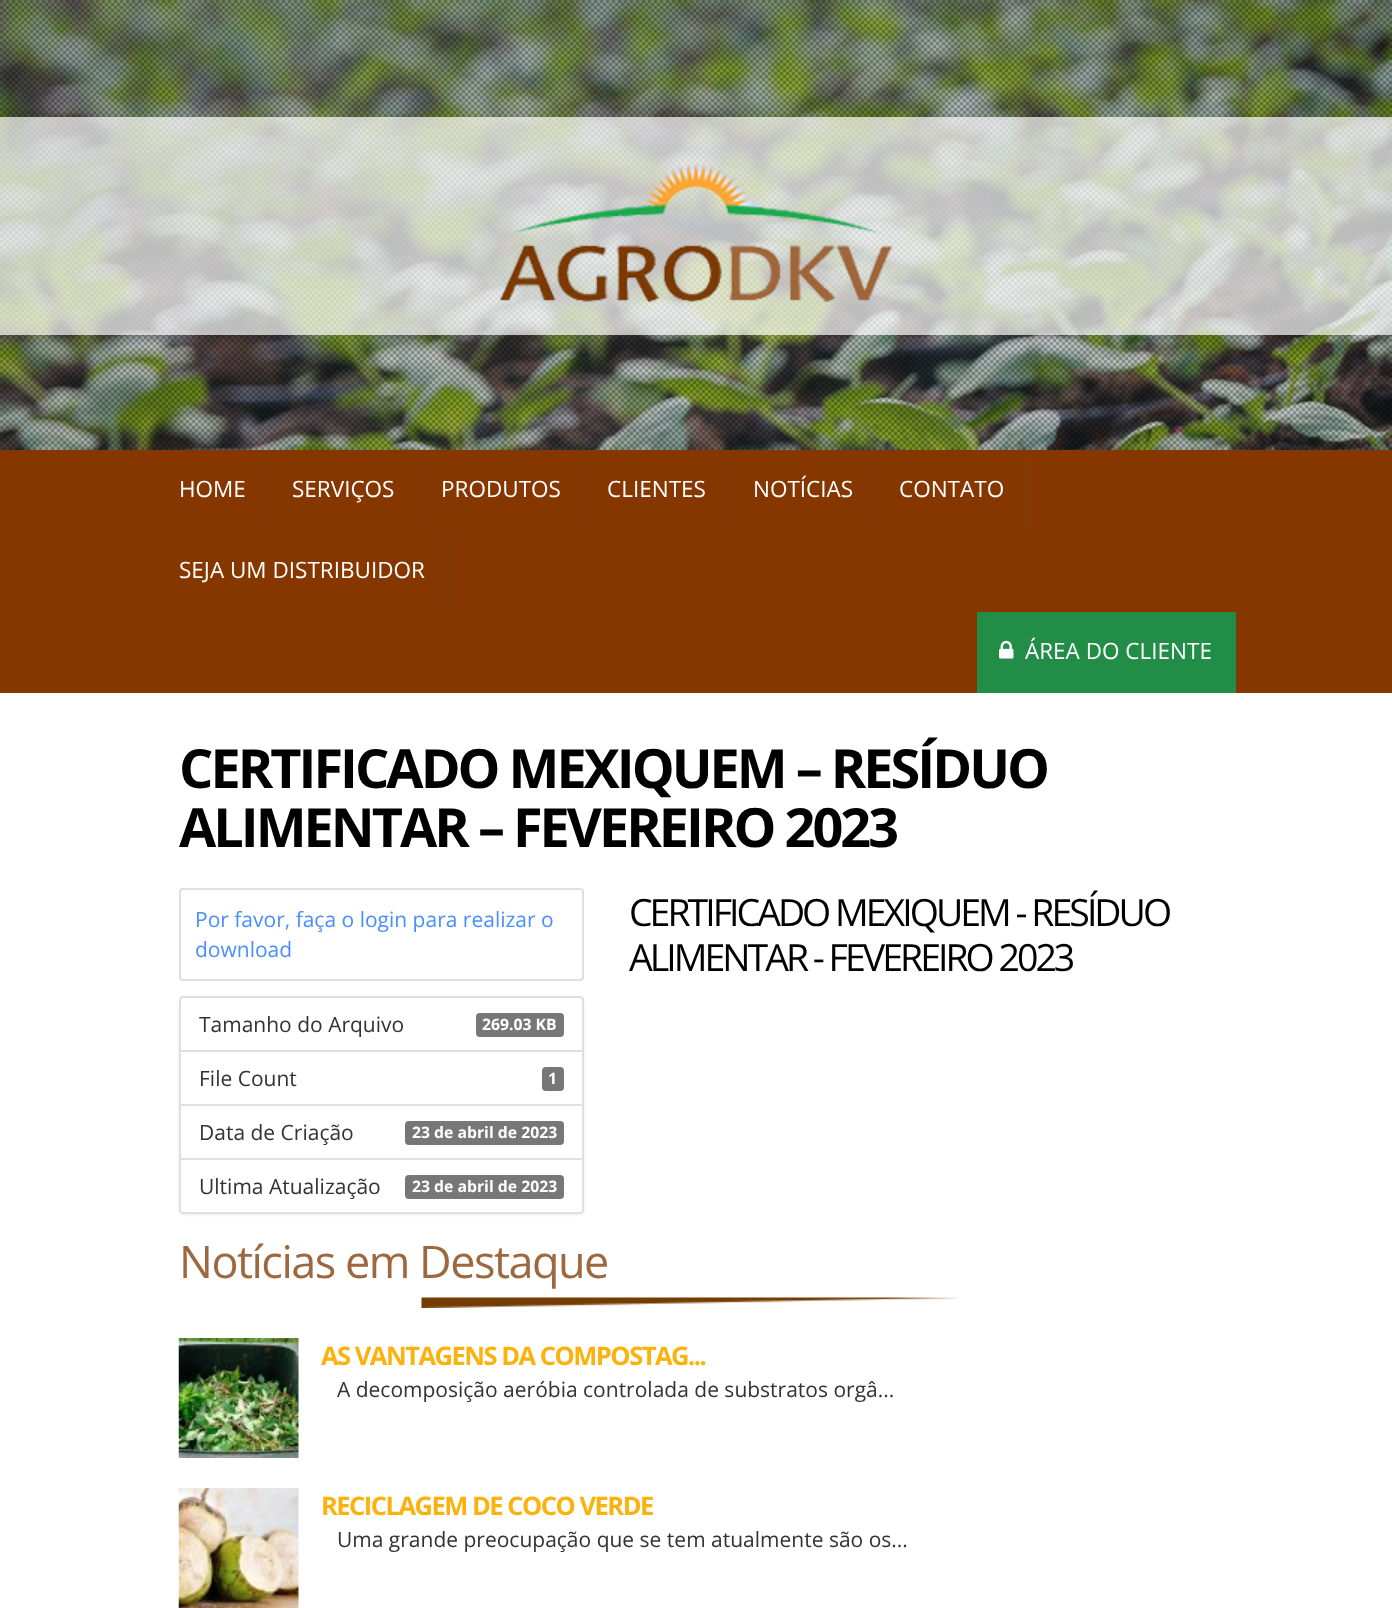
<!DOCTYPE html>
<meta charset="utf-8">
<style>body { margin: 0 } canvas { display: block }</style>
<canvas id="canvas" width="1392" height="1608"></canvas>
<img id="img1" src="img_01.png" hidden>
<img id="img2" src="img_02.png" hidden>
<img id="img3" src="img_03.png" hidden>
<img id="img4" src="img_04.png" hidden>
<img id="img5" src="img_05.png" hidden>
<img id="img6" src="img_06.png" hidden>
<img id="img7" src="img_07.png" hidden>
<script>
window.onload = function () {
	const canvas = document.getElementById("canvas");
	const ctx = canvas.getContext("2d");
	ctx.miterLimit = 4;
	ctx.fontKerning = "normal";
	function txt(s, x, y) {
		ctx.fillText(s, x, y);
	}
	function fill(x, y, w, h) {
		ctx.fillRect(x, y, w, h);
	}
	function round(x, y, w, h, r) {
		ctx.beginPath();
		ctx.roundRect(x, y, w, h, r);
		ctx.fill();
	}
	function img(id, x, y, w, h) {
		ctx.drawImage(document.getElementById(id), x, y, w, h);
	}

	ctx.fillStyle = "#FFFFFF";
	fill(0, 0, 1392, 1608);
	img("img1", 0, 0, 1392, 450);
	img("img2", 0, 0, 1392, 450);
	ctx.fillStyle = "rgba(255, 255, 255, 0.7)";
	fill(0, 117, 1392, 218);
	img("img3", 499, 163, 394, 140);
	ctx.fillStyle = "#863700";
	fill(0, 450, 1392, 243);
	ctx.fillStyle = "#803A0A";
	fill(269, 450, 2, 81);
	fill(417, 450, 2, 81);
	fill(584, 450, 2, 81);
	fill(729, 450, 2, 81);
	fill(875, 450, 2, 81);
	fill(1028, 450, 2, 81);
	fill(447, 531, 2, 81);
	ctx.fillStyle = "#218D47";
	fill(977, 612, 259, 81);
	ctx.fillStyle = "rgba(80, 80, 80, 0.12)";
	fill(1235, 612, 2, 81);
	img("img4", 999, 640, 15, 19);
	ctx.beginPath();
	ctx.roundRect(180, 889, 403, 91, 3);
	ctx.strokeStyle = "#DFDFDF";
	ctx.lineWidth = 2;
	ctx.stroke();
	ctx.fillStyle = "rgba(0, 0, 0, 0.07)";
	ctx.filter = "blur(1.5px)";
	ctx.beginPath();
	ctx.roundRect(179, 998, 405, 217, 6);
	ctx.fill();
	ctx.filter = "none";
	ctx.fillStyle = "#FFFFFF";
	ctx.beginPath();
	ctx.roundRect(180, 997, 403, 54, [3, 3, 0, 0]);
	ctx.fill();
	ctx.stroke();
	ctx.fillStyle = "#777777";
	round(476, 1013, 88, 24, 4);
	ctx.fillStyle = "#FFFFFF";
	ctx.beginPath();
	ctx.rect(180, 1051, 403, 54);
	ctx.fill();
	ctx.stroke();
	ctx.fillStyle = "#777777";
	round(542, 1067, 22, 24, 4);
	ctx.fillStyle = "#FFFFFF";
	ctx.beginPath();
	ctx.rect(180, 1105, 403, 54);
	ctx.fill();
	ctx.stroke();
	ctx.fillStyle = "#777777";
	round(405, 1121, 159, 24, 4);
	ctx.fillStyle = "#FFFFFF";
	ctx.beginPath();
	ctx.roundRect(179, 1158, 405, 56, [0, 0, 4, 4]);
	ctx.fill();
	ctx.beginPath();
	ctx.roundRect(180, 1159, 403, 54, [0, 0, 3, 3]);
	ctx.strokeStyle = "rgba(0, 0, 0, 0.12)";
	ctx.stroke();
	ctx.fillStyle = "#777777";
	round(405, 1175, 159, 24, 4);
	img("img5", 421, 1297, 538, 11);
	img("img6", 178, 1338, 121, 120);
	img("img7", 178, 1488, 121, 120);
	ctx.font = "22.5px Open Sans";
	ctx.fillStyle = "#FFFFFF";
	txt("HOME", 179, 497);
	txt("SERVIÇOS", 292, 497);
	txt("PRODUTOS", 441, 497);
	txt("CLIENTES", 607, 497);
	txt("NOTÍCIAS", 753, 497);
	txt("CONTATO", 899, 497);
	txt("SEJA UM DISTRIBUIDOR", 179, 578);
	txt("ÁREA DO CLIENTE", 1025, 659);
	ctx.letterSpacing = "-3px";
	ctx.font = "bold 54px Open Sans";
	ctx.fillStyle = "#000000";
	txt("CERTIFICADO MEXIQUEM – RESÍDUO", 179, 788);
	txt("ALIMENTAR – FEVEREIRO 2023", 179, 847);
	ctx.letterSpacing = "0px";
	ctx.font = "21px Open Sans";
	ctx.fillStyle = "#4A8EFF";
	txt("Por favor, faça o login para realizar o", 195, 927);
	txt("download", 195, 957);
	ctx.fillStyle = "#333333";
	txt("Tamanho do Arquivo", 199, 1032);
	ctx.font = "bold 15.75px Open Sans";
	ctx.fillStyle = "#FFFFFF";
	txt("269.03 KB", 482, 1030);
	ctx.font = "21px Open Sans";
	ctx.fillStyle = "#333333";
	txt("File Count", 199, 1086);
	ctx.font = "bold 15.75px Open Sans";
	ctx.fillStyle = "#FFFFFF";
	txt("1", 548, 1084);
	ctx.font = "21px Open Sans";
	ctx.fillStyle = "#333333";
	txt("Data de Criação", 199, 1140);
	ctx.font = "bold 15.75px Open Sans";
	ctx.fillStyle = "#FFFFFF";
	txt("23 de abril de 2023", 412, 1138);
	ctx.font = "21px Open Sans";
	ctx.fillStyle = "#333333";
	txt("Ultima Atualização", 199, 1194);
	ctx.font = "bold 15.75px Open Sans";
	ctx.fillStyle = "#FFFFFF";
	txt("23 de abril de 2023", 412, 1192);
	ctx.letterSpacing = "-3px";
	ctx.font = "37.5px Open Sans";
	ctx.fillStyle = "#000000";
	txt("CERTIFICADO MEXIQUEM - RESÍDUO", 629, 926);
	txt("ALIMENTAR - FEVEREIRO 2023", 629, 971);
	ctx.letterSpacing = "-1.5px";
	ctx.font = "45px Open Sans";
	ctx.fillStyle = "#9E673E";
	txt("Notícias em Destaque", 179, 1278);
	ctx.font = "bold 25.5px Open Sans";
	ctx.fillStyle = "#FBB20D";
	txt("AS VANTAGENS DA COMPOSTAG...", 321, 1365);
	ctx.letterSpacing = "0px";
	ctx.font = "21px Open Sans";
	ctx.fillStyle = "#333333";
	txt("A decomposição aeróbia controlada de substratos orgâ...", 337, 1397);
	ctx.letterSpacing = "-1.5px";
	ctx.font = "bold 25.5px Open Sans";
	ctx.fillStyle = "#FBB20D";
	txt("RECICLAGEM DE COCO VERDE", 321, 1515);
	ctx.letterSpacing = "0px";
	ctx.font = "21px Open Sans";
	ctx.fillStyle = "#333333";
	txt("Uma grande preocupação que se tem atualmente são os...", 337, 1547);
};
</script>
